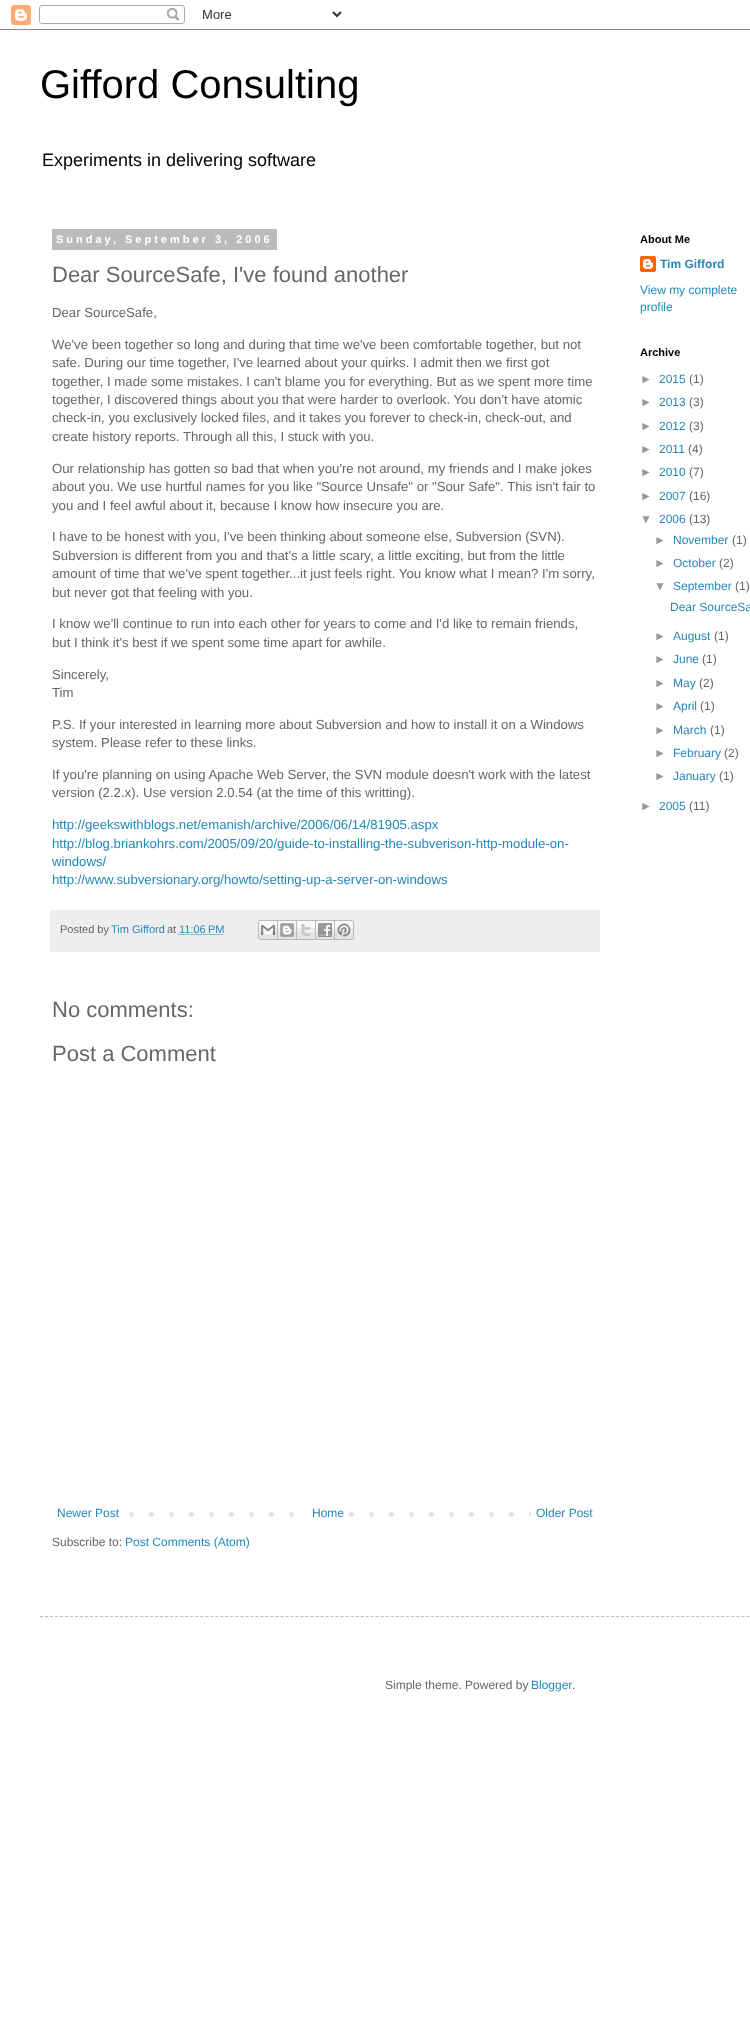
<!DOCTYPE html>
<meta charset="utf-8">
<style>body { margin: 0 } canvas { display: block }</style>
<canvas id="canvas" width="750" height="2028"></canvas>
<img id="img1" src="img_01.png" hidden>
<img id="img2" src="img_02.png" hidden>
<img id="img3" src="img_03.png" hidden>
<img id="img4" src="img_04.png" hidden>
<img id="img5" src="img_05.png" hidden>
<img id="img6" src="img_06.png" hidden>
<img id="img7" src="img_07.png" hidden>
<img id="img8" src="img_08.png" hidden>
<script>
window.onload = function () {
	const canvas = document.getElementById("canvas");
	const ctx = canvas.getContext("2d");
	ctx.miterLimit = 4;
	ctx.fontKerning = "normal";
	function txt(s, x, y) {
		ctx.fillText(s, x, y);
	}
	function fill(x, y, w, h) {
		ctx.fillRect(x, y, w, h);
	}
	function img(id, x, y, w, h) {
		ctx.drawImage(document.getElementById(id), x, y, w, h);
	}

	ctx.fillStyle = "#FFFFFF";
	fill(0, 0, 750, 2028);
	img("img1", 0, 5, 750, 25);
	ctx.fillStyle = "#BBBBBB";
	fill(52, 229, 225, 21);
	ctx.fillStyle = "#EEEEEE";
	fill(50, 910, 550, 42);
	ctx.beginPath();
	ctx.moveTo(178.5, 934.5);
	ctx.lineTo(223, 934.5);
	ctx.strokeStyle = "#2288BB";
	ctx.setLineDash([1, 1]);
	ctx.stroke();
	img("img2", 258, 920, 20, 20);
	img("img3", 278, 920, 19, 20);
	img("img4", 297, 920, 19, 20);
	img("img5", 316, 920, 19, 20);
	img("img6", 335, 920, 19, 20);
	img("img7", 129, 1512, 402, 5);
	ctx.fillStyle = "#FFFFFF";
	fill(309, 1512, 26, 5);
	img("img8", 640, 256, 16, 16);
	ctx.beginPath();
	ctx.moveTo(40, 1616.5);
	ctx.lineTo(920, 1616.5);
	ctx.strokeStyle = "#BBBBBB";
	ctx.setLineDash([3, 2.01]);
	ctx.stroke();
	ctx.font = "40px Liberation Sans";
	ctx.fillStyle = "#000000";
	txt("Gifford Consulting", 40, 98);
	ctx.font = "18px Liberation Sans";
	txt("Experiments in delivering software", 42, 166);
	ctx.letterSpacing = "3px";
	ctx.font = "bold 11px Liberation Sans";
	ctx.fillStyle = "#FFFFFF";
	txt("Sunday, September 3, 2006", 56, 243);
	ctx.letterSpacing = "0px";
	ctx.font = "22px Liberation Sans";
	ctx.fillStyle = "#666666";
	txt("Dear SourceSafe, I've found another", 52, 282);
	ctx.font = "13.2px Liberation Sans";
	txt("Dear SourceSafe,", 52, 317);
	txt("We've been together so long and during that time we've been comfortable together, but not", 52, 349);
	txt("safe. During our time together, I've learned about your quirks. I admit then we first got", 52, 367);
	txt("together, I made some mistakes. I can't blame you for everything. But as we spent more time", 52, 386);
	txt("together, I discovered things about you that were harder to overlook. You don't have atomic", 52, 404);
	txt("check-in, you exclusively locked files, and it takes you forever to check-in, check-out, and", 52, 422);
	txt("create history reports. Through all this, I stuck with you.", 52, 441);
	txt("Our relationship has gotten so bad that when you're not around, my friends and I make jokes", 52, 473);
	txt("about you. We use hurtful names for you like \"Source Unsafe\" or \"Sour Safe\". This isn't fair to", 52, 491);
	txt("you and I feel awful about it, because I know how insecure you are.", 52, 510);
	txt("I have to be honest with you, I've been thinking about someone else, Subversion (SVN).", 52, 541);
	txt("Subversion is different from you and that's a little scary, a little exciting, but from the little", 52, 560);
	txt("amount of time that we've spent together...it just feels right. You know what I mean? I'm sorry,", 52, 578);
	txt("but never got that feeling with you.", 52, 597);
	txt("I know we'll continue to run into each other for years to come and I'd like to remain friends,", 52, 628);
	txt("but I think it's best if we spent some time apart for awhile.", 52, 647);
	txt("Sincerely,", 52, 679);
	txt("Tim", 52, 697);
	txt("P.S. If your interested in learning more about Subversion and how to install it on a Windows", 52, 729);
	txt("system. Please refer to these links.", 52, 747);
	txt("If you're planning on using Apache Web Server, the SVN module doesn't work with the latest", 52, 779);
	txt("version (2.2.x). Use version 2.0.54 (at the time of this writting).", 52, 797);
	ctx.fillStyle = "#2288BB";
	txt("http://geekswithblogs.net/emanish/archive/2006/06/14/81905.aspx", 52, 829);
	txt("http://blog.briankohrs.com/2005/09/20/guide-to-installing-the-subverison-http-module-on-", 52, 848);
	txt("windows/", 52, 866);
	txt("http://www.subversionary.org/howto/setting-up-a-server-on-windows", 52, 884);
	ctx.font = "11px Liberation Sans";
	ctx.fillStyle = "#666666";
	txt("Posted by", 60, 933);
	ctx.fillStyle = "#2288BB";
	txt("Tim Gifford", 111, 933);
	ctx.fillStyle = "#666666";
	txt("at", 167, 933);
	ctx.fillStyle = "#2288BB";
	txt("11:06 PM", 179, 933);
	ctx.font = "22px Liberation Sans";
	ctx.fillStyle = "#666666";
	txt("No comments:", 52, 1017);
	txt("Post a Comment", 52, 1061);
	ctx.font = "12px Liberation Sans";
	ctx.fillStyle = "#2288BB";
	txt("Newer Post", 57, 1517);
	txt("Home", 312, 1517);
	txt("Older Post", 536, 1517);
	ctx.fillStyle = "#666666";
	txt("Subscribe to:", 52, 1546);
	ctx.fillStyle = "#2288BB";
	txt("Post Comments (Atom)", 125, 1546);
	ctx.font = "bold 11px Liberation Sans";
	ctx.fillStyle = "#000000";
	txt("About Me", 640, 243);
	ctx.font = "bold 12px Liberation Sans";
	ctx.fillStyle = "#2288BB";
	txt("Tim Gifford", 660, 268);
	ctx.font = "12px Liberation Sans";
	txt("View my complete", 640, 294);
	txt("profile", 640, 311);
	ctx.font = "bold 11px Liberation Sans";
	ctx.fillStyle = "#000000";
	txt("Archive", 640, 356);
	ctx.font = "12px Liberation Sans";
	ctx.fillStyle = "#999999";
	txt("►", 640, 383);
	ctx.fillStyle = "#2288BB";
	txt("2015", 659, 383);
	ctx.fillStyle = "#666666";
	txt("(1)", 689, 383);
	ctx.fillStyle = "#999999";
	txt("►", 640, 406);
	ctx.fillStyle = "#2288BB";
	txt("2013", 659, 406);
	ctx.fillStyle = "#666666";
	txt("(3)", 689, 406);
	ctx.fillStyle = "#999999";
	txt("►", 640, 430);
	ctx.fillStyle = "#2288BB";
	txt("2012", 659, 430);
	ctx.fillStyle = "#666666";
	txt("(3)", 689, 430);
	ctx.fillStyle = "#999999";
	txt("►", 640, 453);
	ctx.fillStyle = "#2288BB";
	txt("2011", 659, 453);
	ctx.fillStyle = "#666666";
	txt("(4)", 688, 453);
	ctx.fillStyle = "#999999";
	txt("►", 640, 476);
	ctx.fillStyle = "#2288BB";
	txt("2010", 659, 476);
	ctx.fillStyle = "#666666";
	txt("(7)", 689, 476);
	ctx.fillStyle = "#999999";
	txt("►", 640, 500);
	ctx.fillStyle = "#2288BB";
	txt("2007", 659, 500);
	ctx.fillStyle = "#666666";
	txt("(16)", 689, 500);
	ctx.fillStyle = "#999999";
	txt("▼", 640, 523);
	ctx.fillStyle = "#2288BB";
	txt("2006", 659, 523);
	ctx.fillStyle = "#666666";
	txt("(13)", 689, 523);
	ctx.fillStyle = "#999999";
	txt("►", 654, 544);
	ctx.fillStyle = "#2288BB";
	txt("November", 673, 544);
	ctx.fillStyle = "#666666";
	txt("(1)", 732, 544);
	ctx.fillStyle = "#999999";
	txt("►", 654, 567);
	ctx.fillStyle = "#2288BB";
	txt("October", 673, 567);
	ctx.fillStyle = "#666666";
	txt("(2)", 719, 567);
	ctx.fillStyle = "#999999";
	txt("▼", 654, 590);
	ctx.fillStyle = "#2288BB";
	txt("September", 673, 590);
	ctx.fillStyle = "#666666";
	txt("(1)", 735, 590);
	ctx.fillStyle = "#2288BB";
	txt("Dear SourceSa", 670, 611);
	ctx.fillStyle = "#999999";
	txt("►", 654, 640);
	ctx.fillStyle = "#2288BB";
	txt("August", 673, 640);
	ctx.fillStyle = "#666666";
	txt("(1)", 714, 640);
	ctx.fillStyle = "#999999";
	txt("►", 654, 663);
	ctx.fillStyle = "#2288BB";
	txt("June", 673, 663);
	ctx.fillStyle = "#666666";
	txt("(1)", 702, 663);
	ctx.fillStyle = "#999999";
	txt("►", 654, 687);
	ctx.fillStyle = "#2288BB";
	txt("May", 673, 687);
	ctx.fillStyle = "#666666";
	txt("(2)", 699, 687);
	ctx.fillStyle = "#999999";
	txt("►", 654, 710);
	ctx.fillStyle = "#2288BB";
	txt("April", 673, 710);
	ctx.fillStyle = "#666666";
	txt("(1)", 700, 710);
	ctx.fillStyle = "#999999";
	txt("►", 654, 734);
	ctx.fillStyle = "#2288BB";
	txt("March", 673, 734);
	ctx.fillStyle = "#666666";
	txt("(1)", 710, 734);
	ctx.fillStyle = "#999999";
	txt("►", 654, 757);
	ctx.fillStyle = "#2288BB";
	txt("February", 673, 757);
	ctx.fillStyle = "#666666";
	txt("(2)", 724, 757);
	ctx.fillStyle = "#999999";
	txt("►", 654, 780);
	ctx.fillStyle = "#2288BB";
	txt("January", 673, 780);
	ctx.fillStyle = "#666666";
	txt("(1)", 719, 780);
	ctx.fillStyle = "#999999";
	txt("►", 640, 810);
	ctx.fillStyle = "#2288BB";
	txt("2005", 659, 810);
	ctx.fillStyle = "#666666";
	txt("(11)", 689, 810);
	txt("Simple theme. Powered by", 385, 1689);
	ctx.fillStyle = "#2288BB";
	txt("Blogger", 531, 1689);
	ctx.fillStyle = "#666666";
	txt(".", 572, 1689);
};
</script>
